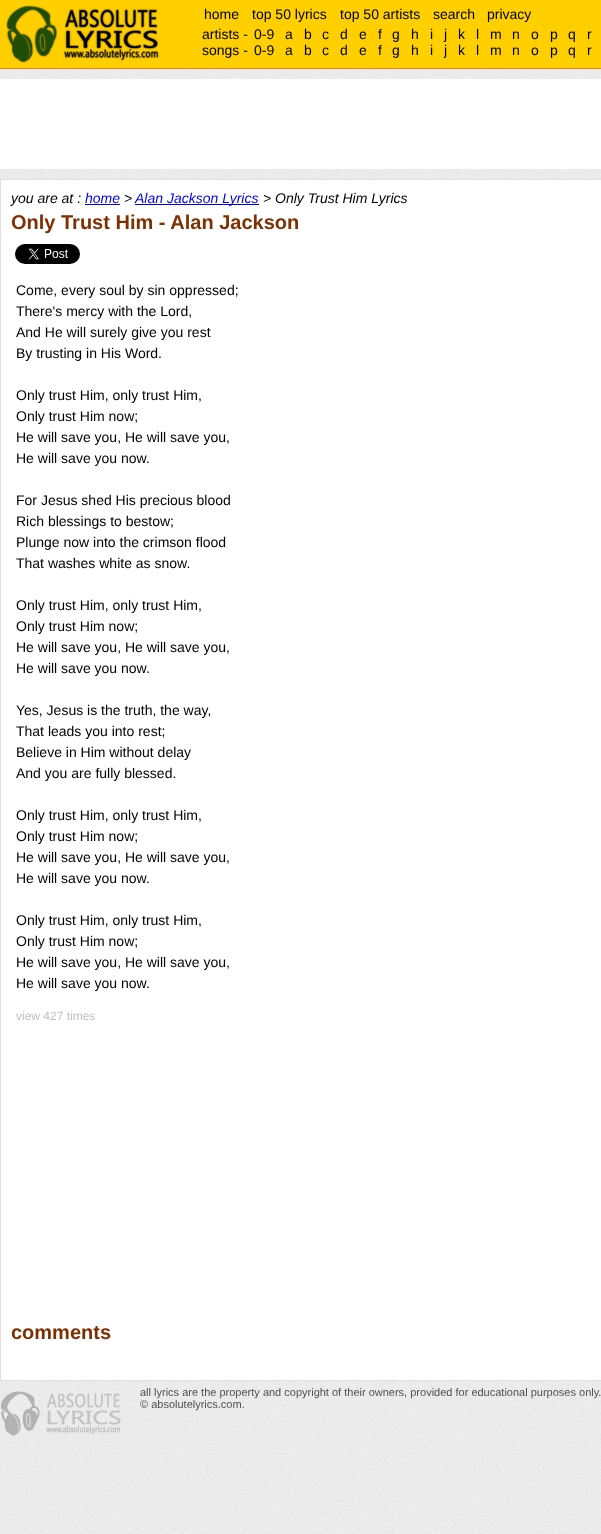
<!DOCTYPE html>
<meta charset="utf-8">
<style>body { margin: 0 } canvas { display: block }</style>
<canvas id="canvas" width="601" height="1534"></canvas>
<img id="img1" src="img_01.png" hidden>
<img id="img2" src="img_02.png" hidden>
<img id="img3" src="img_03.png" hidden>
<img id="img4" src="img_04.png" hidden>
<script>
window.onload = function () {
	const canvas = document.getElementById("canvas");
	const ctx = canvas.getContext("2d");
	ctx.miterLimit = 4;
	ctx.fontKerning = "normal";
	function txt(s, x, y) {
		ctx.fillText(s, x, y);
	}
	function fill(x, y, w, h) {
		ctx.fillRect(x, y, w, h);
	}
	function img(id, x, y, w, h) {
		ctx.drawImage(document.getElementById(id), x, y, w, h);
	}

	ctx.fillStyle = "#FFFFFF";
	fill(0, 0, 601, 1534);
	img("img1", 0, 69, 601, 1465);
	ctx.fillStyle = "#FFCF00";
	fill(0, 0, 601, 68);
	ctx.fillStyle = "#FF7F00";
	fill(0, 68, 601, 1);
	img("img2", 5, 5, 155, 58);
	ctx.fillStyle = "#FFFFFF";
	fill(0, 79, 601, 90);
	ctx.beginPath();
	ctx.rect(0.5, 179.5, 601, 1201);
	ctx.fill();
	ctx.strokeStyle = "#DFDFDF";
	ctx.stroke();
	ctx.fillStyle = "#0000EE";
	fill(85, 204, 35, 1);
	fill(135, 204, 124, 1);
	img("img3", 15, 244, 65, 20);
	img("img4", 1, 1391, 120, 45);
	ctx.font = "14px Liberation Sans";
	ctx.fillStyle = "#000000";
	txt("home", 204, 19);
	txt("top 50 lyrics", 252, 19);
	txt("top 50 artists", 340, 19);
	txt("search", 433, 19);
	txt("privacy", 487, 19);
	txt("artists -", 202, 39);
	txt("0-9", 254, 39);
	txt("a", 285, 39);
	txt("b", 304, 39);
	txt("c", 322, 39);
	txt("d", 340, 39);
	txt("e", 359, 39);
	txt("f", 378, 39);
	txt("g", 392, 39);
	txt("h", 411, 39);
	txt("i", 430, 39);
	txt("j", 444, 39);
	txt("k", 458, 39);
	txt("l", 476, 39);
	txt("m", 490, 39);
	txt("n", 512, 39);
	txt("o", 531, 39);
	txt("p", 550, 39);
	txt("q", 568, 39);
	txt("r", 587, 39);
	txt("songs -", 202, 55);
	txt("0-9", 254, 55);
	txt("a", 285, 55);
	txt("b", 304, 55);
	txt("c", 322, 55);
	txt("d", 340, 55);
	txt("e", 359, 55);
	txt("f", 378, 55);
	txt("g", 392, 55);
	txt("h", 411, 55);
	txt("i", 430, 55);
	txt("j", 444, 55);
	txt("k", 458, 55);
	txt("l", 476, 55);
	txt("m", 490, 55);
	txt("n", 512, 55);
	txt("o", 531, 55);
	txt("p", 550, 55);
	txt("q", 568, 55);
	txt("r", 587, 55);
	ctx.font = "italic 14px Liberation Sans";
	txt("you are at :", 11, 203);
	ctx.fillStyle = "#0000EE";
	txt("home", 85, 203);
	ctx.fillStyle = "#000000";
	txt(">", 124, 203);
	ctx.fillStyle = "#0000EE";
	txt("Alan Jackson Lyrics", 135, 203);
	ctx.fillStyle = "#000000";
	txt("> Only Trust Him Lyrics", 263, 203);
	ctx.font = "bold 20px Liberation Sans";
	ctx.fillStyle = "#7F2F00";
	txt("Only Trust Him - Alan Jackson", 11, 229);
	ctx.font = "14px Liberation Sans";
	ctx.fillStyle = "#000000";
	txt("Come, every soul by sin oppressed;", 16, 295);
	txt("There's mercy with the Lord,", 16, 316);
	txt("And He will surely give you rest", 16, 337);
	txt("By trusting in His Word.", 16, 358);
	txt("Only trust Him, only trust Him,", 16, 400);
	txt("Only trust Him now;", 16, 421);
	txt("He will save you, He will save you,", 16, 442);
	txt("He will save you now.", 16, 463);
	txt("For Jesus shed His precious blood", 16, 505);
	txt("Rich blessings to bestow;", 16, 526);
	txt("Plunge now into the crimson flood", 16, 547);
	txt("That washes white as snow.", 16, 568);
	txt("Only trust Him, only trust Him,", 16, 610);
	txt("Only trust Him now;", 16, 631);
	txt("He will save you, He will save you,", 16, 652);
	txt("He will save you now.", 16, 673);
	txt("Yes, Jesus is the truth, the way,", 16, 715);
	txt("That leads you into rest;", 16, 736);
	txt("Believe in Him without delay", 16, 757);
	txt("And you are fully blessed.", 16, 778);
	txt("Only trust Him, only trust Him,", 16, 820);
	txt("Only trust Him now;", 16, 841);
	txt("He will save you, He will save you,", 16, 862);
	txt("He will save you now.", 16, 883);
	txt("Only trust Him, only trust Him,", 16, 925);
	txt("Only trust Him now;", 16, 946);
	txt("He will save you, He will save you,", 16, 967);
	txt("He will save you now.", 16, 988);
	ctx.font = "12px Liberation Sans";
	ctx.fillStyle = "#C0C0C0";
	txt("view 427 times", 16, 1020);
	ctx.font = "bold 20px Liberation Sans";
	ctx.fillStyle = "#7F2F00";
	txt("comments", 11, 1339);
	ctx.font = "11px Liberation Sans";
	ctx.fillStyle = "#4F4F4F";
	txt("all lyrics are the property and copyright of their owners, provided for educational purposes only.", 140, 1396);
	txt("© absolutelyrics.com.", 140, 1408);
};
</script>
